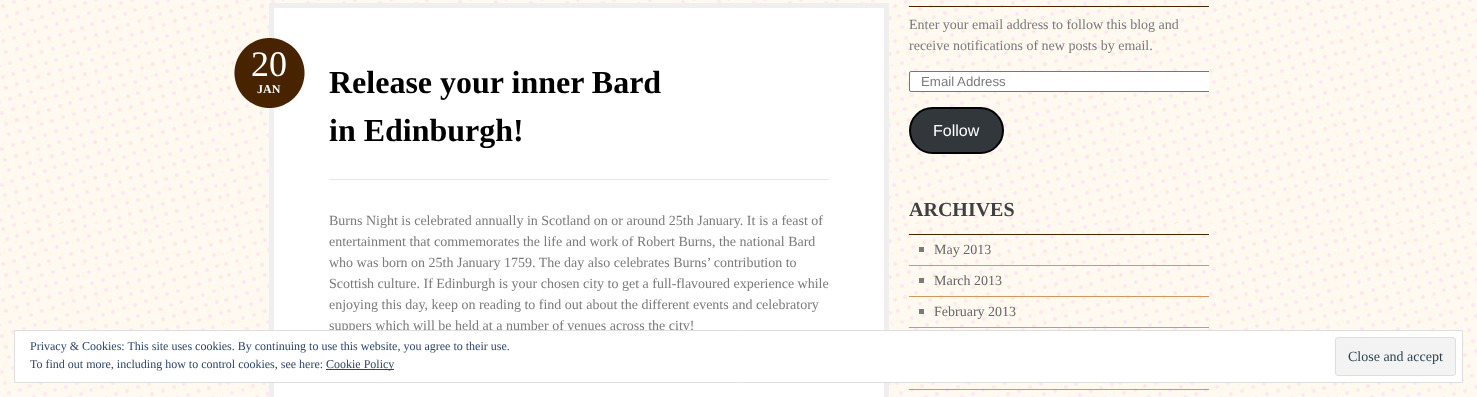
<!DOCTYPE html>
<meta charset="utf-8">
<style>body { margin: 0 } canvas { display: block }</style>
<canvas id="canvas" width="1477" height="397"></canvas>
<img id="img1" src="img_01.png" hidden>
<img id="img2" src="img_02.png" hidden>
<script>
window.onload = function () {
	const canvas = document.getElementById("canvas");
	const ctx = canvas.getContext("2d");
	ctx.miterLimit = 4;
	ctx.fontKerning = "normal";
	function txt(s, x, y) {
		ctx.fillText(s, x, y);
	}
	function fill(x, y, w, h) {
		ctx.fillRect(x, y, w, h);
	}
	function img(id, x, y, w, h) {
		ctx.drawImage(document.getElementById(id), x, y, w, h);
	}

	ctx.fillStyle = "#FFFFFF";
	fill(0, 0, 1477, 397);
	img("img1", 0, 0, 1477, 397);
	ctx.beginPath();
	ctx.rect(271.5, 5.5, 615, 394);
	ctx.fill();
	ctx.strokeStyle = "#EFEFEF";
	ctx.lineWidth = 5;
	ctx.stroke();
	img("img2", 234, 38, 71, 70);
	ctx.fillStyle = "#E7E7E7";
	fill(329, 179, 500, 1);
	ctx.fillStyle = "#472300";
	fill(909, 6, 300, 1);
	ctx.fillStyle = "#FFFFFF";
	ctx.beginPath();
	ctx.roundRect(909, 71, 300, 21, [2, 0, 0, 2]);
	ctx.fill();
	ctx.save();
	ctx.beginPath();
	ctx.rect(909, 0, 300, 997);
	ctx.clip();
	ctx.beginPath();
	ctx.roundRect(909.5, 71.5, 308, 20, 1.5);
	ctx.strokeStyle = "#767676";
	ctx.lineWidth = 1;
	ctx.stroke();
	ctx.restore();
	ctx.fillStyle = "#32373C";
	ctx.beginPath();
	ctx.roundRect(910, 108, 93, 45, 22.5);
	ctx.fill();
	ctx.strokeStyle = "#000000";
	ctx.lineWidth = 2;
	ctx.stroke();
	ctx.fillStyle = "#472300";
	fill(909, 234, 300, 1);
	ctx.fillStyle = "#7A7A7A";
	fill(919, 247, 5, 5);
	ctx.fillStyle = "#D3975D";
	fill(909, 265, 300, 1);
	ctx.fillStyle = "#7A7A7A";
	fill(919, 278, 5, 5);
	ctx.fillStyle = "#D3975D";
	fill(909, 296, 300, 1);
	ctx.fillStyle = "#7A7A7A";
	fill(919, 309, 5, 5);
	ctx.fillStyle = "#D3975D";
	fill(909, 327, 300, 1);
	fill(909, 389, 300, 1);
	ctx.font = "36px Liberation Serif";
	ctx.fillStyle = "#FFFFFF";
	txt("20", 251, 76);
	ctx.font = "bold 12px Liberation Serif";
	txt("JAN", 257, 93);
	ctx.font = "bold 32px Liberation Serif";
	ctx.fillStyle = "#000000";
	txt("Release your inner Bard", 329, 93);
	txt("in Edinburgh!", 329, 141);
	ctx.font = "14px Liberation Serif";
	ctx.fillStyle = "#7A7A7A";
	txt("Burns Night is celebrated annually in Scotland on or around 25th January. It is a feast of", 329, 225);
	txt("entertainment that commemorates the life and work of Robert Burns, the national Bard", 329, 246);
	txt("who was born on 25th January 1759. The day also celebrates Burns’ contribution to", 329, 267);
	txt("Scottish culture. If Edinburgh is your chosen city to get a full-flavoured experience while", 329, 288);
	txt("enjoying this day, keep on reading to find out about the different events and celebratory", 329, 309);
	txt("suppers which will be held at a number of venues across the city!", 329, 330);
	txt("Enter your email address to follow this blog and", 909, 29);
	txt("receive notifications of new posts by email.", 909, 50);
	ctx.font = "13.25px Liberation Sans";
	txt("Email Address", 921, 86);
	ctx.font = "16px Liberation Sans";
	ctx.fillStyle = "#FFFFFF";
	txt("Follow", 933, 136);
	ctx.font = "bold 20px Liberation Serif";
	ctx.fillStyle = "#404040";
	txt("ARCHIVES", 909, 216);
	ctx.font = "14px Liberation Serif";
	ctx.fillStyle = "#666666";
	txt("May 2013", 934, 254);
	txt("March 2013", 934, 285);
	txt("February 2013", 934, 316);
	ctx.fillStyle = "#FFFFFF";
	ctx.beginPath();
	ctx.rect(14.5, 330.5, 1448, 52);
	ctx.fill();
	ctx.strokeStyle = "#DEDEDE";
	ctx.lineWidth = 1;
	ctx.stroke();
	ctx.font = "12px Liberation Serif";
	ctx.fillStyle = "#2E4467";
	txt("Privacy & Cookies: This site uses cookies. By continuing to use this website, you agree to their use.", 30, 350);
	txt("To find out more, including how to control cookies, see here:", 30, 368);
	fill(326, 369, 68, 1);
	txt("Cookie Policy", 326, 368);
	ctx.fillStyle = "#F3F3F3";
	ctx.beginPath();
	ctx.roundRect(1335.5, 337.5, 120, 38, 2.5);
	ctx.fill();
	ctx.stroke();
	ctx.font = "14px Liberation Serif";
	ctx.fillStyle = "#2E4453";
	txt("Close and accept", 1348, 361);
};
</script>
